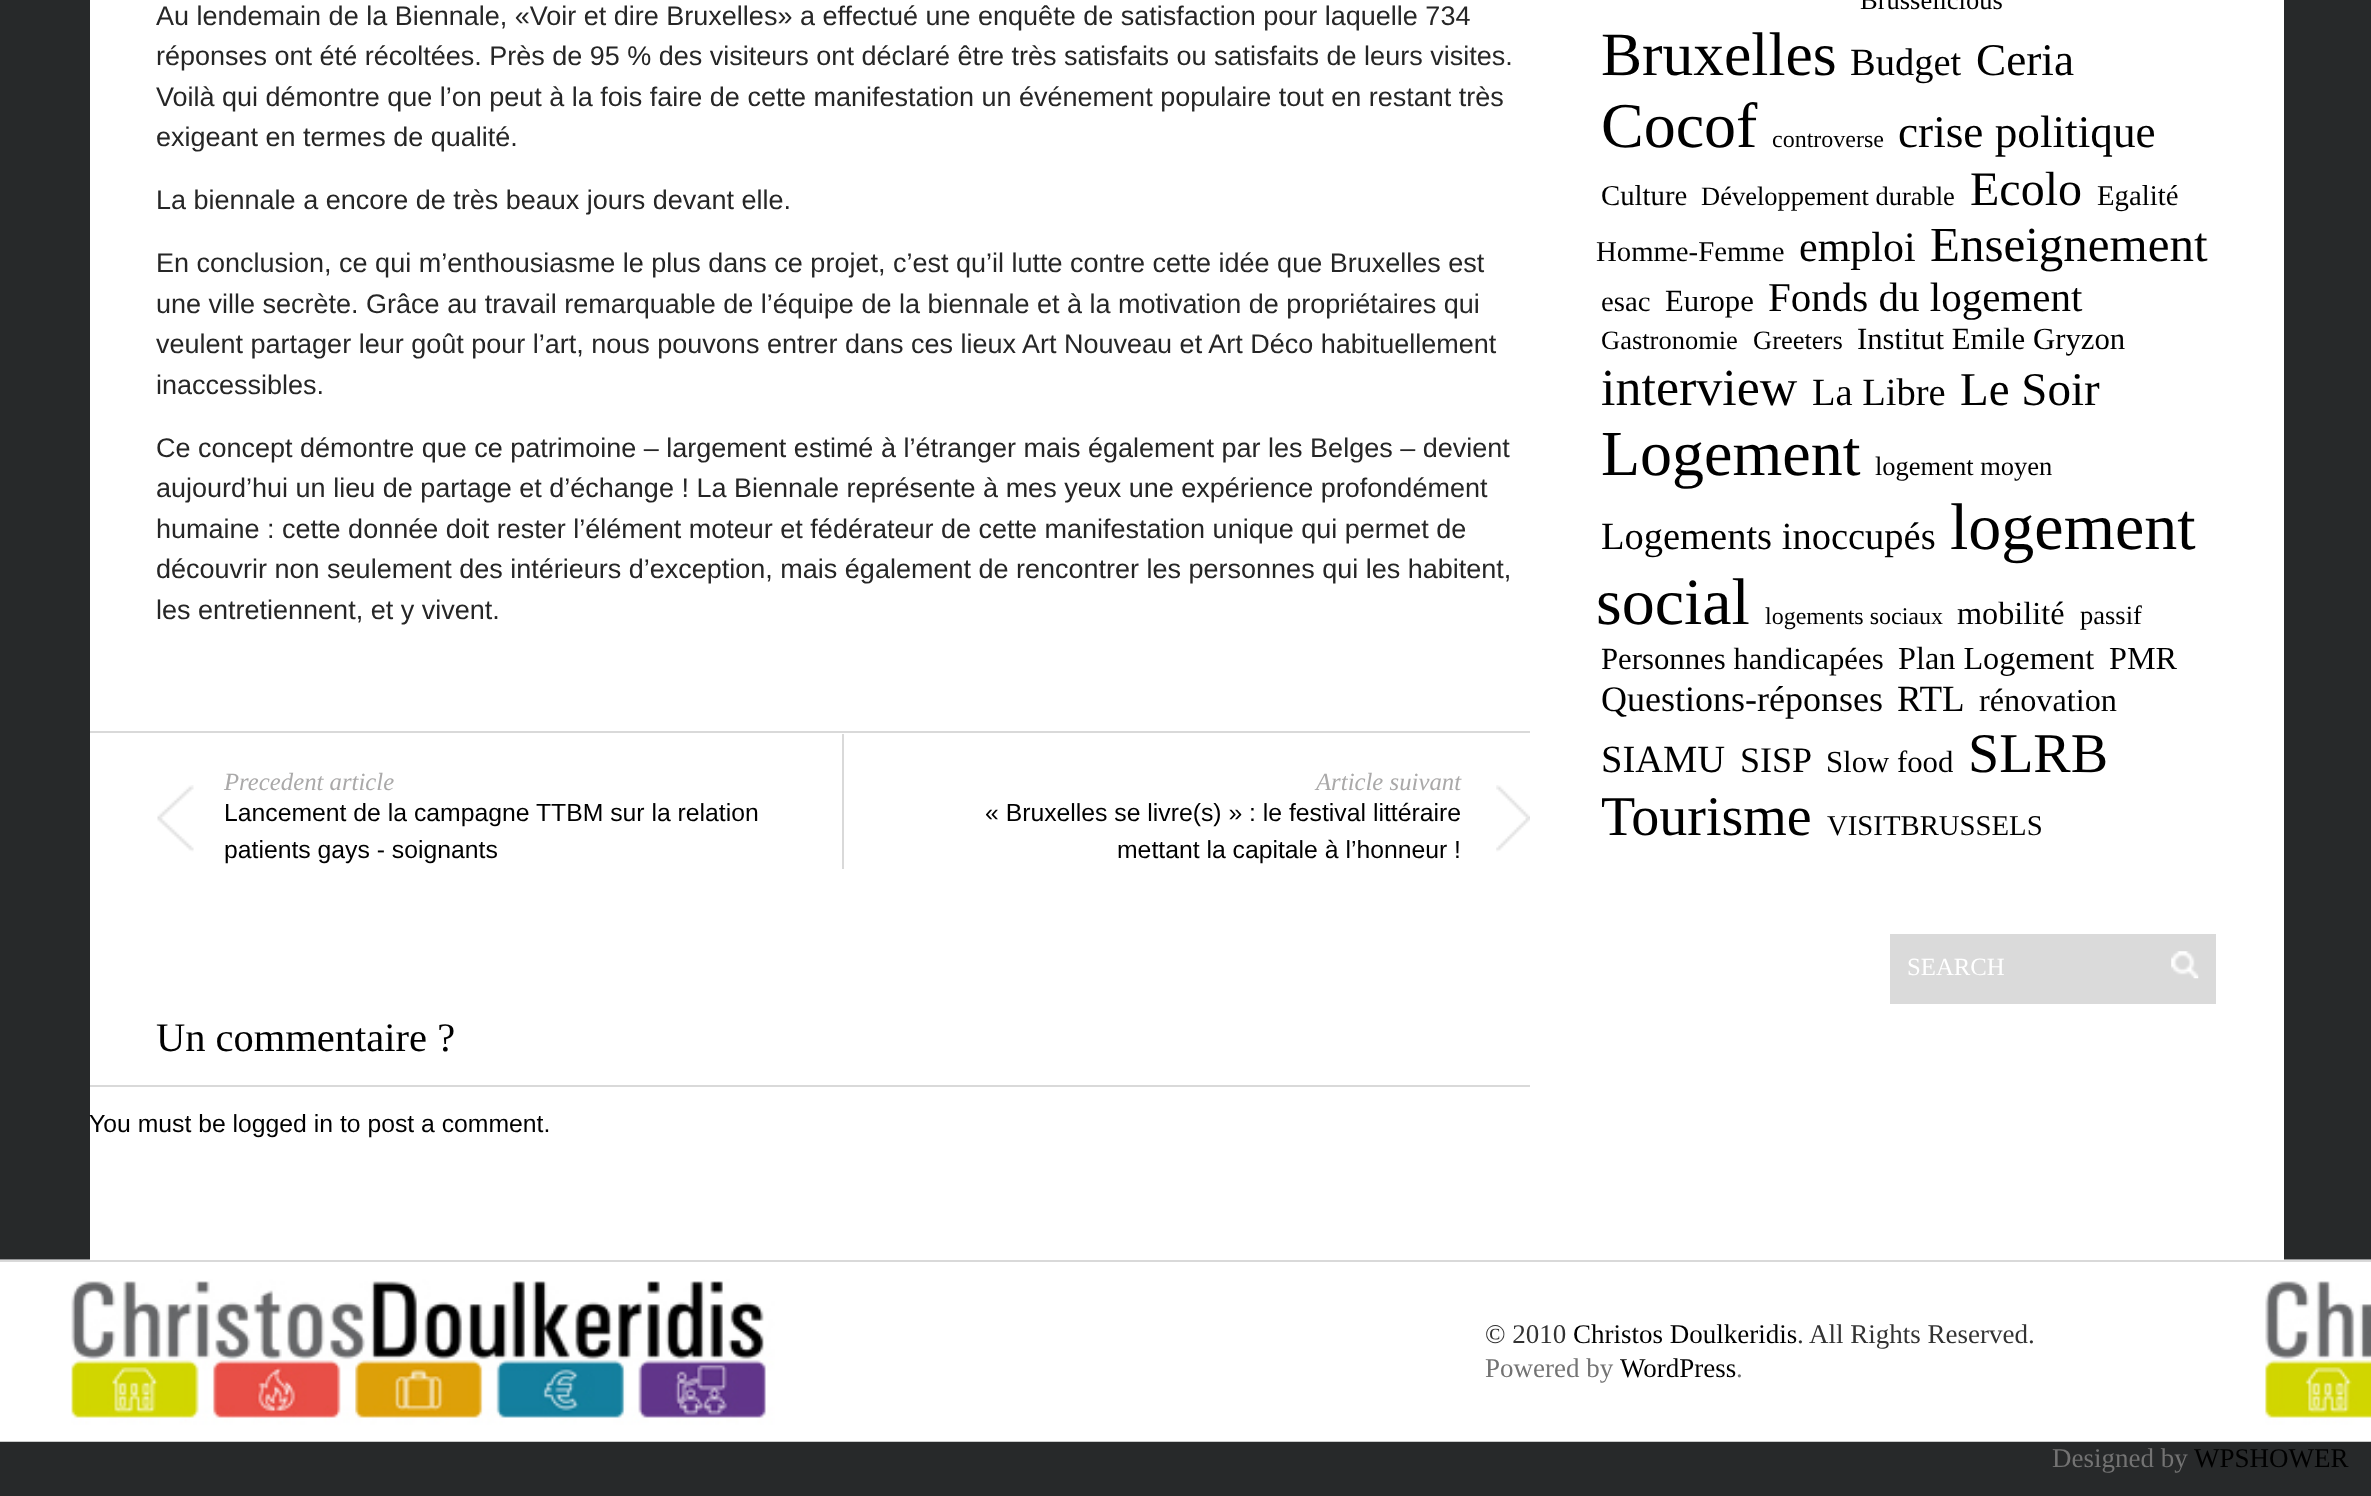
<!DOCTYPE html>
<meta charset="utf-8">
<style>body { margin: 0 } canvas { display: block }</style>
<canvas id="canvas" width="2371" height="1496"></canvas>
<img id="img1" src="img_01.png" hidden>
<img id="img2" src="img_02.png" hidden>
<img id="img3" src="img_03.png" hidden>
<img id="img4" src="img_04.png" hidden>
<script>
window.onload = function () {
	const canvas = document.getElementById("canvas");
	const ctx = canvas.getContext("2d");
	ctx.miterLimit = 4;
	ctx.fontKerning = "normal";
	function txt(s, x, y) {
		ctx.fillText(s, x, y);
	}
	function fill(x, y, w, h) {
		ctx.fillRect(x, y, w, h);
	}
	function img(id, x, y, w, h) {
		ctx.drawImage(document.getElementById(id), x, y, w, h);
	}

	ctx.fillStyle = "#27292A";
	fill(0, 0, 2371, 1496);
	ctx.fillStyle = "#FFFFFF";
	fill(90, 0, 2194, 1260);
	ctx.fillStyle = "#D9D9D9";
	fill(90, 731, 1440, 2);
	img("img1", 157, 785, 37, 67);
	fill(842, 734, 2, 135);
	img("img2", 1496, 785, 34, 67);
	fill(90, 1085, 1440, 2);
	ctx.fillStyle = "#DADADA";
	fill(1890, 934, 326, 70);
	img("img3", 2171, 951, 28, 28);
	img("img4", 0, 1259, 2371, 183);
	ctx.fillStyle = "#D9D9D9";
	fill(0, 1260, 2371, 2);
	ctx.font = "27px Liberation Sans";
	ctx.fillStyle = "#262626";
	txt("Au lendemain de la Biennale, «Voir et dire Bruxelles» a effectué une enquête de satisfaction pour laquelle 734", 156, 25);
	txt("réponses ont été récoltées. Près de 95 % des visiteurs ont déclaré être très satisfaits ou satisfaits de leurs visites.", 156, 65);
	txt("Voilà qui démontre que l’on peut à la fois faire de cette manifestation un événement populaire tout en restant très", 156, 106);
	txt("exigeant en termes de qualité.", 156, 146);
	txt("La biennale a encore de très beaux jours devant elle.", 156, 209);
	txt("En conclusion, ce qui m’enthousiasme le plus dans ce projet, c’est qu’il lutte contre cette idée que Bruxelles est", 156, 272);
	txt("une ville secrète. Grâce au travail remarquable de l’équipe de la biennale et à la motivation de propriétaires qui", 156, 313);
	txt("veulent partager leur goût pour l’art, nous pouvons entrer dans ces lieux Art Nouveau et Art Déco habituellement", 156, 353);
	txt("inaccessibles.", 156, 394);
	txt("Ce concept démontre que ce patrimoine – largement estimé à l’étranger mais également par les Belges – devient", 156, 457);
	txt("aujourd’hui un lieu de partage et d’échange ! La Biennale représente à mes yeux une expérience profondément", 156, 497);
	txt("humaine : cette donnée doit rester l’élément moteur et fédérateur de cette manifestation unique qui permet de", 156, 538);
	txt("découvrir non seulement des intérieurs d’exception, mais également de rencontrer les personnes qui les habitent,", 156, 578);
	txt("les entretiennent, et y vivent.", 156, 619);
	ctx.font = "italic 24.75px Liberation Serif";
	ctx.fillStyle = "#AAA9A9";
	txt("Precedent article", 224, 790);
	ctx.font = "24.75px Liberation Sans";
	ctx.fillStyle = "#000000";
	txt("Lancement de la campagne TTBM sur la relation", 224, 821);
	txt("patients gays - soignants", 224, 858);
	ctx.font = "italic 24.75px Liberation Serif";
	ctx.fillStyle = "#AAA9A9";
	txt("Article suivant", 1316, 790);
	ctx.font = "24.75px Liberation Sans";
	ctx.fillStyle = "#000000";
	txt("« Bruxelles se livre(s) » : le festival littéraire", 985, 821);
	txt("mettant la capitale à l’honneur !", 1117, 858);
	ctx.font = "40.5px Liberation Serif";
	txt("Un commentaire ?", 156, 1051);
	ctx.font = "24.75px Liberation Sans";
	txt("You must be logged in to post a comment.", 89, 1132);
	ctx.font = "26.5px Liberation Serif";
	txt("Brusselicious", 1860, 9);
	ctx.font = "61.5px Liberation Serif";
	txt("Bruxelles", 1601, 75);
	ctx.font = "38.5px Liberation Serif";
	txt("Budget", 1850, 75);
	ctx.font = "45.25px Liberation Serif";
	txt("Ceria", 1976, 75);
	ctx.font = "64px Liberation Serif";
	txt("Cocof", 1601, 147);
	ctx.font = "24px Liberation Serif";
	txt("controverse", 1772, 147);
	ctx.font = "45.25px Liberation Serif";
	txt("crise politique", 1898, 147);
	ctx.font = "28.75px Liberation Serif";
	txt("Culture", 1601, 205);
	ctx.font = "26.5px Liberation Serif";
	txt("Développement durable", 1701, 205);
	ctx.font = "48px Liberation Serif";
	txt("Ecolo", 1970, 205);
	ctx.font = "28.75px Liberation Serif";
	txt("Egalité", 2097, 205);
	txt("Homme-Femme", 1596, 261);
	ctx.font = "42px Liberation Serif";
	txt("emploi", 1799, 261);
	ctx.font = "49px Liberation Serif";
	txt("Enseignement", 1930, 261);
	ctx.font = "28.75px Liberation Serif";
	txt("esac", 1601, 311);
	ctx.font = "30.75px Liberation Serif";
	txt("Europe", 1665, 311);
	ctx.font = "41px Liberation Serif";
	txt("Fonds du logement", 1768, 311);
	ctx.font = "26.5px Liberation Serif";
	txt("Gastronomie", 1601, 349);
	txt("Greeters", 1753, 349);
	ctx.font = "30.75px Liberation Serif";
	txt("Institut Emile Gryzon", 1857, 349);
	ctx.font = "52px Liberation Serif";
	txt("interview", 1601, 405);
	ctx.font = "38.5px Liberation Serif";
	txt("La Libre", 1812, 405);
	ctx.font = "47px Liberation Serif";
	txt("Le Soir", 1960, 405);
	ctx.font = "64px Liberation Serif";
	txt("Logement", 1601, 475);
	ctx.font = "26.5px Liberation Serif";
	txt("logement moyen", 1875, 475);
	ctx.font = "38.5px Liberation Serif";
	txt("Logements inoccupés", 1601, 549);
	ctx.font = "66px Liberation Serif";
	txt("logement", 1950, 549);
	txt("social", 1596, 624);
	ctx.font = "24px Liberation Serif";
	txt("logements sociaux", 1765, 624);
	ctx.font = "32.25px Liberation Serif";
	txt("mobilité", 1957, 624);
	ctx.font = "26.5px Liberation Serif";
	txt("passif", 2080, 624);
	ctx.font = "30.75px Liberation Serif";
	txt("Personnes handicapées", 1601, 669);
	ctx.font = "32.25px Liberation Serif";
	txt("Plan Logement", 1898, 669);
	txt("PMR", 2109, 669);
	ctx.font = "36px Liberation Serif";
	txt("Questions-réponses", 1601, 711);
	ctx.font = "37px Liberation Serif";
	txt("RTL", 1897, 711);
	ctx.font = "32.25px Liberation Serif";
	txt("rénovation", 1979, 711);
	ctx.font = "38.5px Liberation Serif";
	txt("SIAMU", 1601, 772);
	ctx.font = "36px Liberation Serif";
	txt("SISP", 1740, 772);
	ctx.font = "30.75px Liberation Serif";
	txt("Slow food", 1826, 772);
	ctx.font = "56px Liberation Serif";
	txt("SLRB", 1968, 772);
	txt("Tourisme", 1601, 835);
	ctx.font = "28.75px Liberation Serif";
	txt("VISITBRUSSELS", 1827, 835);
	ctx.font = "24.75px Liberation Serif";
	ctx.fillStyle = "#FFFFFF";
	txt("SEARCH", 1907, 975);
	ctx.font = "27px Liberation Serif";
	ctx.fillStyle = "#333333";
	txt("© 2010", 1485, 1343);
	ctx.fillStyle = "#000000";
	txt("Christos Doulkeridis", 1573, 1343);
	ctx.fillStyle = "#333333";
	txt(". All Rights Reserved.", 1797, 1343);
	ctx.fillStyle = "#737373";
	txt("Powered by", 1485, 1377);
	ctx.fillStyle = "#000000";
	txt("WordPress", 1620, 1377);
	ctx.fillStyle = "#737373";
	txt(".", 1736, 1377);
	txt("Designed by", 2052, 1467);
	ctx.fillStyle = "#000000";
	txt("WPSHOWER", 2194, 1467);
};
</script>
